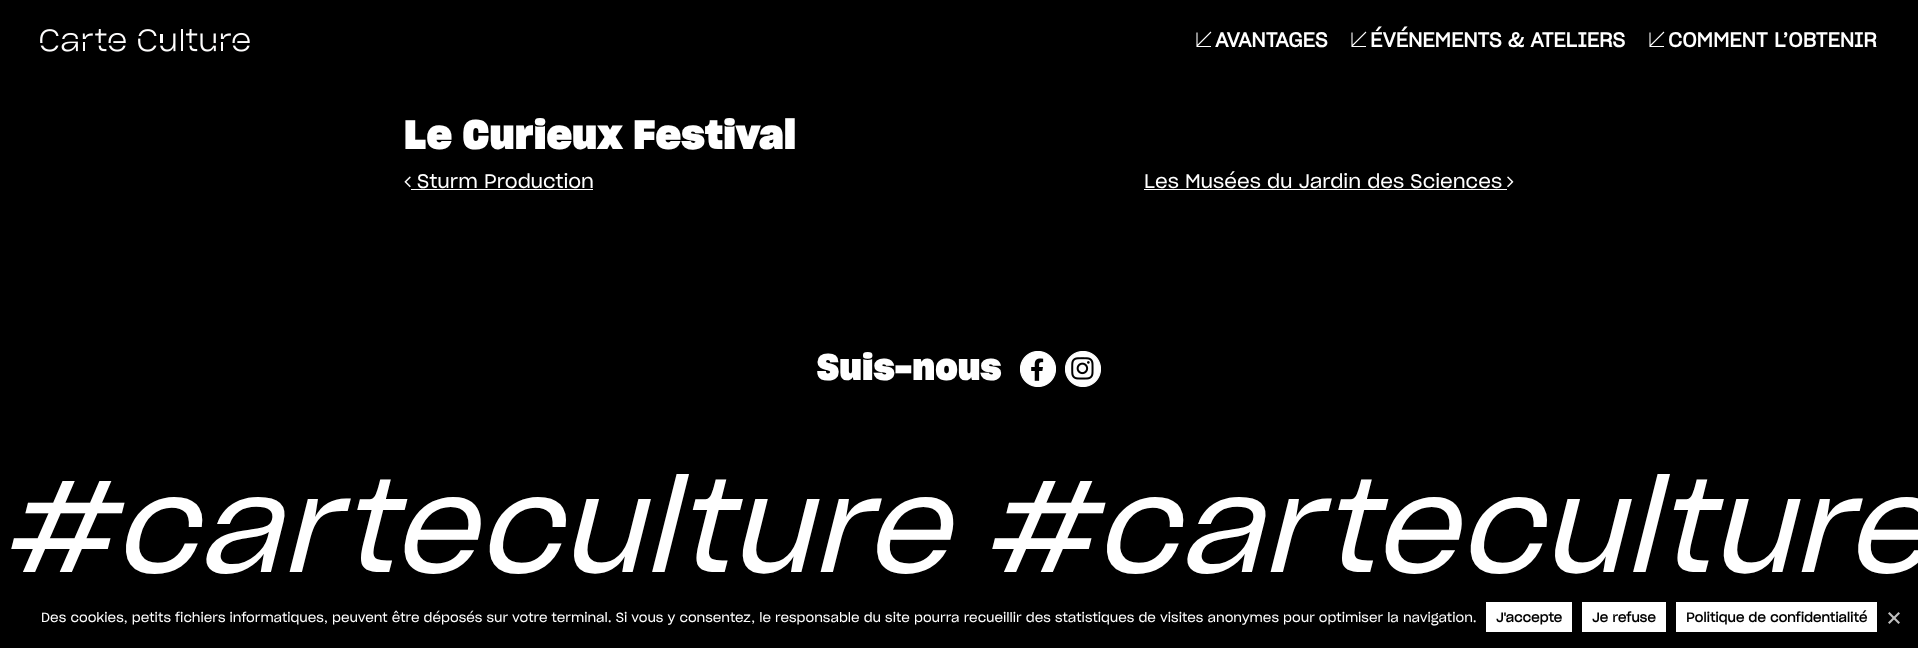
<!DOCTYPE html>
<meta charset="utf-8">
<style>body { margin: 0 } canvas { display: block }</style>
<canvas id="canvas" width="1918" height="648"></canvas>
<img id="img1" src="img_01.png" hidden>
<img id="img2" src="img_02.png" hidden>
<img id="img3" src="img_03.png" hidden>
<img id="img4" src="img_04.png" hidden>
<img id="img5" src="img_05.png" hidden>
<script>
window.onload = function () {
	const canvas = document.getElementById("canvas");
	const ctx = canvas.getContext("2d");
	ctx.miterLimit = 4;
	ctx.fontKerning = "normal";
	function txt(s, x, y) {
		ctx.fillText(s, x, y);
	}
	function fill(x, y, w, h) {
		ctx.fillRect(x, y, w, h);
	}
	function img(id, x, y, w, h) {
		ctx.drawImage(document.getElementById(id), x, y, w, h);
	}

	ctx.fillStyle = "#000000";
	fill(0, 0, 1918, 648);
	img("img1", 40, 29, 210, 23);
	ctx.save();
	ctx.beginPath();
	ctx.rect(1196, 31, 16, 16);
	ctx.clip();
	ctx.beginPath();
	ctx.moveTo(1196.5, 46.5);
	ctx.lineTo(1211, 46.5);
	ctx.moveTo(1197, 47);
	ctx.lineTo(1197, 32.5);
	ctx.moveTo(1197, 46);
	ctx.lineTo(1211, 32);
	ctx.strokeStyle = "#FEFEFE";
	ctx.lineWidth = 1.1;
	ctx.stroke();
	ctx.restore();
	ctx.save();
	ctx.beginPath();
	ctx.rect(1351, 31, 16, 16);
	ctx.clip();
	ctx.beginPath();
	ctx.moveTo(1351.5, 46.5);
	ctx.lineTo(1366, 46.5);
	ctx.moveTo(1352, 47);
	ctx.lineTo(1352, 32.5);
	ctx.moveTo(1352, 46);
	ctx.lineTo(1366, 32);
	ctx.strokeStyle = "#FEFEFE";
	ctx.lineWidth = 1.1;
	ctx.stroke();
	ctx.restore();
	ctx.save();
	ctx.beginPath();
	ctx.rect(1649, 31, 16, 16);
	ctx.clip();
	ctx.beginPath();
	ctx.moveTo(1649.5, 46.5);
	ctx.lineTo(1664, 46.5);
	ctx.moveTo(1650, 47);
	ctx.lineTo(1650, 32.5);
	ctx.moveTo(1650, 46);
	ctx.lineTo(1664, 32);
	ctx.strokeStyle = "#FEFEFE";
	ctx.lineWidth = 1.1;
	ctx.stroke();
	ctx.restore();
	img("img2", 404, 176, 7, 12);
	ctx.fillStyle = "#FFFFFF";
	fill(411, 189, 182, 1);
	fill(1144, 189, 363, 1);
	img("img3", 1507, 176, 7, 12);
	img("img4", 1020, 351, 36, 36);
	img("img5", 1065, 351, 36, 36);
	fill(1486, 602, 86, 30);
	fill(1582, 602, 84, 30);
	fill(1676, 602, 201, 30);
	ctx.fillStyle = "#BFBFBF";
	ctx.beginPath();
	ctx.moveTo(1898.5, 612);
	ctx.lineTo(1900, 613.5);
	ctx.lineTo(1889.5, 624);
	ctx.lineTo(1888, 622.5);
	ctx.closePath();
	ctx.fill();
	ctx.beginPath();
	ctx.moveTo(1888, 613.5);
	ctx.lineTo(1889.5, 612);
	ctx.lineTo(1900, 622.5);
	ctx.lineTo(1898.5, 624);
	ctx.closePath();
	ctx.fill();
	ctx.font = "bold 20px 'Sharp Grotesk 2'";
	ctx.fillStyle = "#FFFFFF";
	txt("AVANTAGES", 1215, 47);
	txt("ÉVÉNEMENTS & ATELIERS", 1370, 47);
	txt("COMMENT L’OBTENIR", 1668, 47);
	ctx.font = "bold 40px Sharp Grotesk";
	txt("Le Curieux Festival", 404, 149);
	ctx.font = "19.25px Sharp Grotesk";
	txt("Sturm Production", 417, 188);
	txt("Les Musées du Jardin des Sciences", 1144, 188);
	ctx.font = "bold 36px Sharp Grotesk";
	txt("Suis-nous", 817, 380);
	ctx.font = "italic 128px Sharp Grotesk";
	txt("#carteculture", 0, 572);
	txt("#carteculture", 981, 572);
	ctx.font = "13px Sharp Grotesk";
	txt("Des cookies, petits fichiers informatiques, peuvent être déposés sur votre terminal. Si vous y consentez, le responsable du site pourra recueillir des statistiques de visites anonymes pour optimiser la navigation.", 41, 622);
	ctx.font = "bold 13px 'Sharp Grotesk 2'";
	ctx.fillStyle = "#000000";
	txt("J'accepte", 1496, 622);
	txt("Je refuse", 1592, 622);
	txt("Politique de confidentialité", 1686, 622);
};
</script>
